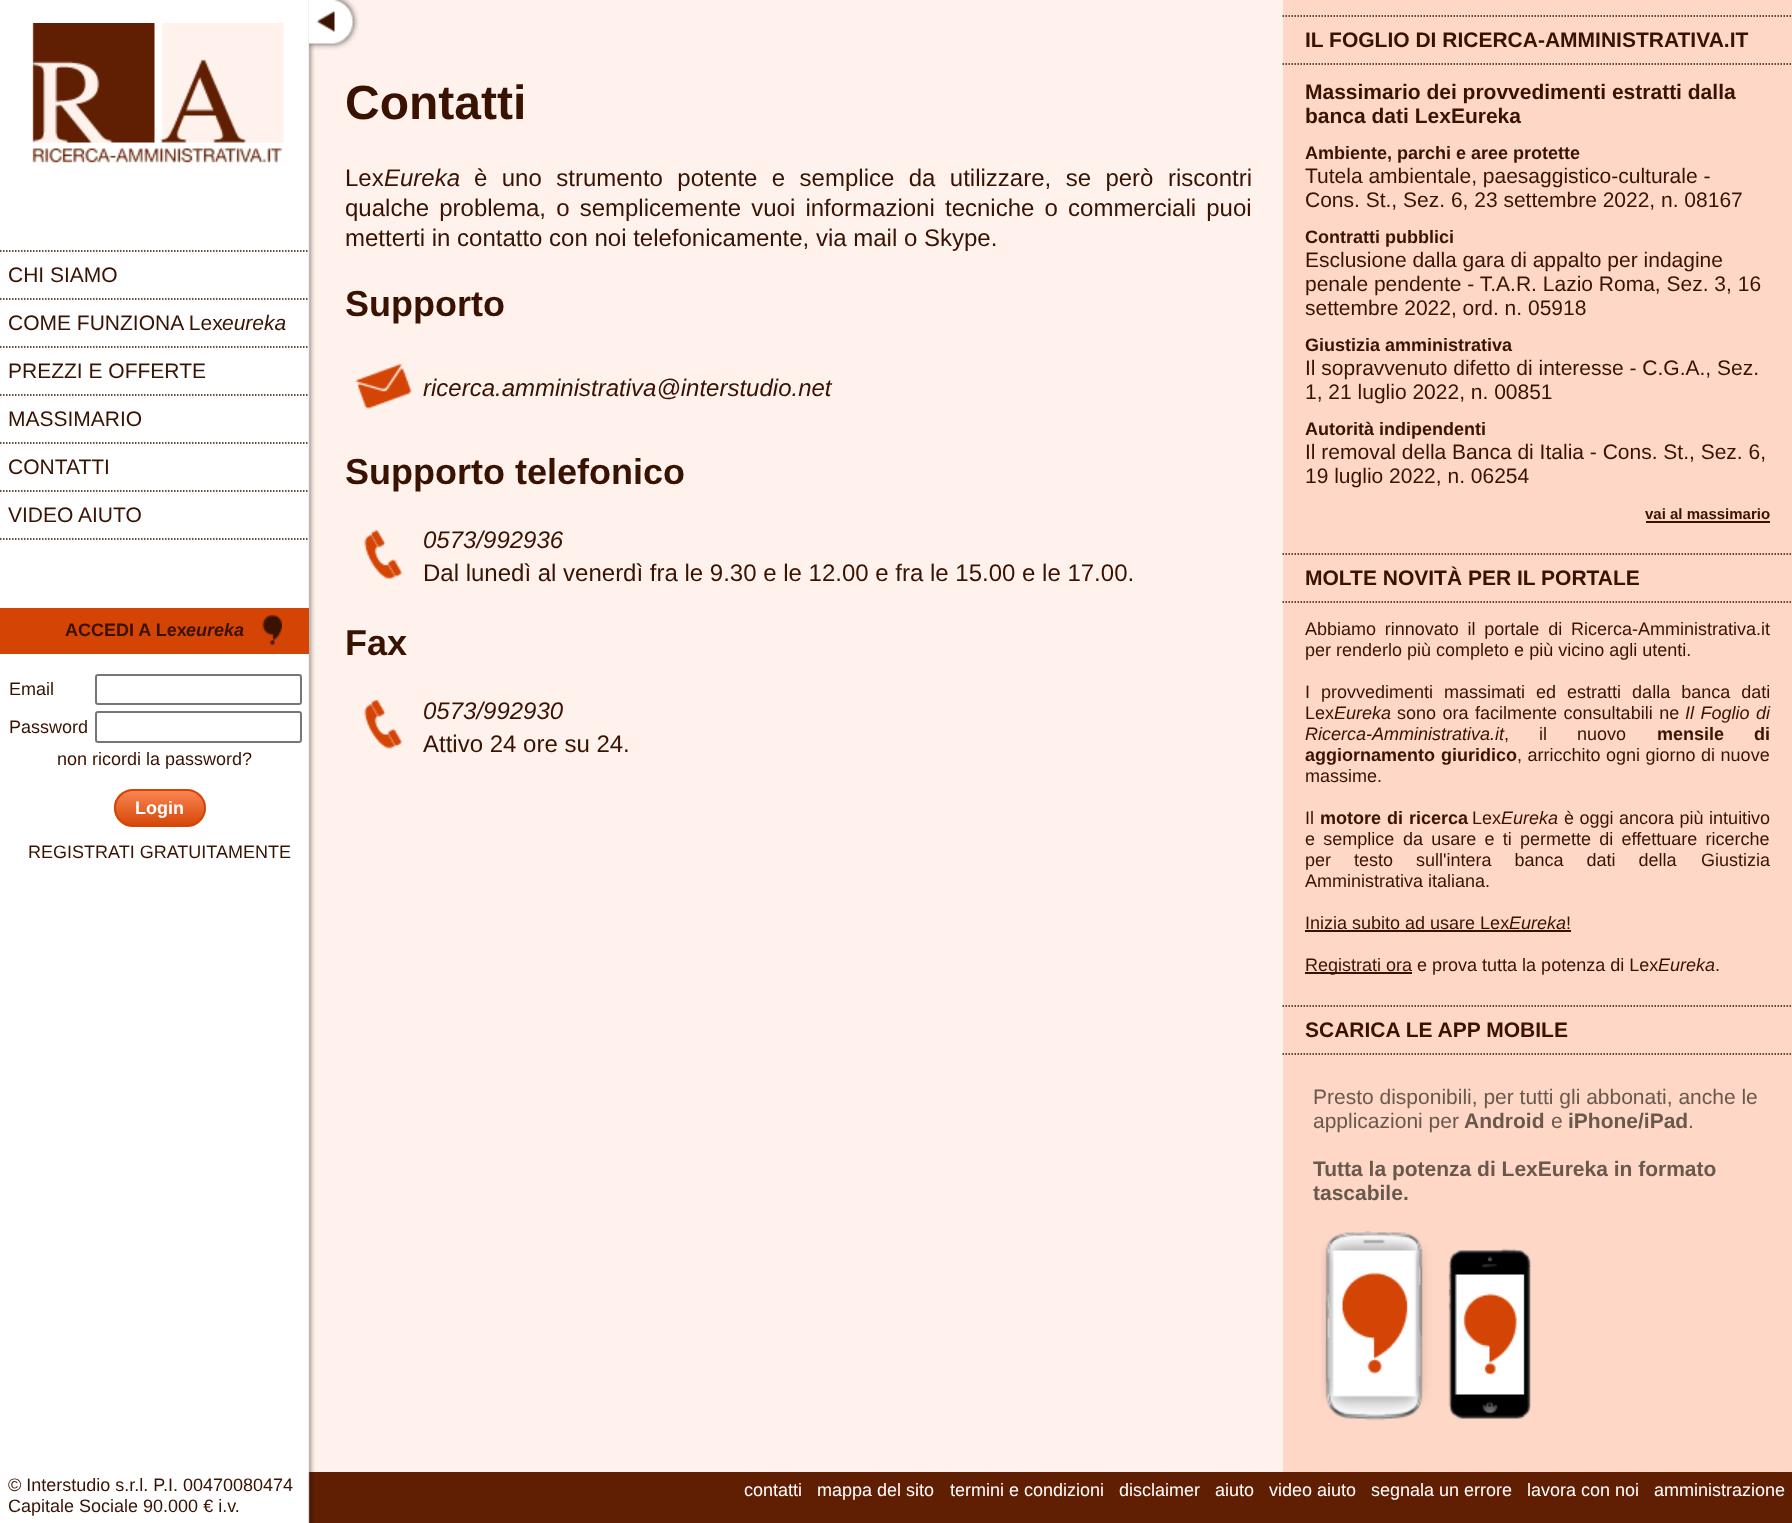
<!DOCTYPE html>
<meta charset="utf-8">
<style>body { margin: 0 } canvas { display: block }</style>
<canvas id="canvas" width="1792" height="1523"></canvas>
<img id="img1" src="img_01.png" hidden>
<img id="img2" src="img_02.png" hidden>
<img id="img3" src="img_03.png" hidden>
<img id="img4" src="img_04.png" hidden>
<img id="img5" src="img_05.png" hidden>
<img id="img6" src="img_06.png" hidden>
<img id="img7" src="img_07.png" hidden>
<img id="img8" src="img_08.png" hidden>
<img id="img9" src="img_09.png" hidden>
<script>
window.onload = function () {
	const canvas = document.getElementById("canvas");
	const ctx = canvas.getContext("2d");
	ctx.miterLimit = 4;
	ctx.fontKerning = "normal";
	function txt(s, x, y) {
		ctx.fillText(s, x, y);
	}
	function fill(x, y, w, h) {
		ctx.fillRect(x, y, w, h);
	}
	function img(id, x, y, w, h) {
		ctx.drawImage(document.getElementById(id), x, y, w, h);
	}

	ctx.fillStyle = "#FFF2EC";
	fill(0, 0, 1792, 1523);
	ctx.fillStyle = "#601F02";
	fill(308, 1472, 1484, 51);
	img("img1", 0, 0, 315, 1523);
	img("img2", 309, 0, 50, 50);
	img("img3", 32, 23, 252, 140);
	ctx.beginPath();
	ctx.moveTo(0, 251);
	ctx.lineTo(309, 251);
	ctx.strokeStyle = "#391201";
	ctx.lineWidth = 1.5;
	ctx.setLineDash([1.5, 1.5]);
	ctx.stroke();
	ctx.beginPath();
	ctx.moveTo(0, 299);
	ctx.lineTo(309, 299);
	ctx.stroke();
	ctx.beginPath();
	ctx.moveTo(0, 347);
	ctx.lineTo(309, 347);
	ctx.stroke();
	ctx.beginPath();
	ctx.moveTo(0, 395);
	ctx.lineTo(309, 395);
	ctx.stroke();
	ctx.beginPath();
	ctx.moveTo(0, 443);
	ctx.lineTo(309, 443);
	ctx.stroke();
	ctx.beginPath();
	ctx.moveTo(0, 491);
	ctx.lineTo(309, 491);
	ctx.stroke();
	ctx.beginPath();
	ctx.moveTo(0, 539);
	ctx.lineTo(309, 539);
	ctx.stroke();
	ctx.fillStyle = "#D34405";
	fill(0, 608, 309, 46);
	img("img4", 262, 615, 20, 31);
	ctx.beginPath();
	ctx.roundRect(96, 675, 205, 29, 2);
	ctx.strokeStyle = "#767676";
	ctx.lineWidth = 2;
	ctx.setLineDash([]);
	ctx.stroke();
	ctx.beginPath();
	ctx.roundRect(96, 712, 205, 30, 2);
	ctx.stroke();
	img("img5", 114, 790, 92, 37);
	ctx.beginPath();
	ctx.roundRect(115, 790, 90, 36, 18);
	ctx.strokeStyle = "#D34405";
	ctx.stroke();
	img("img6", 355, 363, 57, 47);
	img("img7", 364, 530, 39, 49);
	img("img8", 364, 699, 39, 50);
	ctx.fillStyle = "#FED7C6";
	fill(1283, 0, 509, 1472);
	ctx.beginPath();
	ctx.moveTo(1282.5, 16);
	ctx.lineTo(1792.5, 16);
	ctx.strokeStyle = "#391201";
	ctx.lineWidth = 1.5;
	ctx.setLineDash([1.5, 1.5]);
	ctx.stroke();
	ctx.beginPath();
	ctx.moveTo(1282.5, 64);
	ctx.lineTo(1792.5, 64);
	ctx.stroke();
	ctx.fillStyle = "#391201";
	fill(1646, 521, 124, 2);
	ctx.beginPath();
	ctx.moveTo(1282.5, 554);
	ctx.lineTo(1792.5, 554);
	ctx.stroke();
	ctx.beginPath();
	ctx.moveTo(1282.5, 602);
	ctx.lineTo(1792.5, 602);
	ctx.stroke();
	fill(1305, 930, 266, 2);
	fill(1305, 972, 107, 2);
	ctx.beginPath();
	ctx.moveTo(1282.5, 1006);
	ctx.lineTo(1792.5, 1006);
	ctx.stroke();
	ctx.beginPath();
	ctx.moveTo(1282.5, 1054);
	ctx.lineTo(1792.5, 1054);
	ctx.stroke();
	img("img9", 1321, 1231, 210, 190);
	ctx.font = "21px Liberation Sans";
	txt("CHI SIAMO", 8, 282);
	txt("COME FUNZIONA Lex", 8, 330);
	ctx.font = "italic 21px Liberation Sans";
	txt("eureka", 222, 330);
	ctx.font = "21px Liberation Sans";
	txt("PREZZI E OFFERTE", 8, 378);
	txt("MASSIMARIO", 8, 426);
	txt("CONTATTI", 8, 474);
	txt("VIDEO AIUTO", 8, 522);
	ctx.font = "bold 18px Liberation Sans";
	txt("ACCEDI A Lex", 65, 636);
	ctx.font = "italic bold 18px Liberation Sans";
	txt("eureka", 186, 636);
	ctx.font = "18px Liberation Sans";
	txt("Email", 9, 695);
	txt("Password", 9, 733);
	txt("non ricordi la password?", 57, 765);
	ctx.font = "bold 18px Liberation Sans";
	ctx.fillStyle = "#FFFFFF";
	txt("Login", 135, 814);
	ctx.font = "18px Liberation Sans";
	ctx.fillStyle = "#391201";
	txt("REGISTRATI GRATUITAMENTE", 28, 858);
	txt("© Interstudio s.r.l. P.I. 00470080474", 8, 1491);
	txt("Capitale Sociale 90.000 € i.v.", 8, 1512);
	ctx.font = "bold 48px Liberation Sans";
	txt("Contatti", 345, 119);
	ctx.font = "24px Liberation Sans";
	txt("Lex", 345, 186);
	ctx.font = "italic 24px Liberation Sans";
	txt("Eureka", 384, 186);
	ctx.wordSpacing = "7.75px";
	ctx.font = "24px Liberation Sans";
	txt("è uno strumento potente e semplice da utilizzare, se però", 474, 186);
	ctx.wordSpacing = "0px";
	txt("riscontri", 1168, 186);
	ctx.wordSpacing = "3.5px";
	txt("qualche problema, o semplicemente vuoi informazioni tecniche o commerciali puoi", 345, 216);
	ctx.wordSpacing = "0px";
	txt("metterti in contatto con noi telefonicamente, via mail o Skype.", 345, 246);
	ctx.font = "bold 36px Liberation Sans";
	txt("Supporto", 345, 316);
	ctx.font = "italic 24px Liberation Sans";
	txt("ricerca.amministrativa@interstudio.net", 423, 396);
	ctx.font = "bold 36px Liberation Sans";
	txt("Supporto telefonico", 345, 484);
	ctx.font = "italic 24px Liberation Sans";
	txt("0573/992936", 423, 548);
	ctx.font = "24px Liberation Sans";
	txt("Dal lunedì al venerdì fra le 9.30 e le 12.00 e fra le 15.00 e le 17.00.", 423, 581);
	ctx.font = "bold 36px Liberation Sans";
	txt("Fax", 345, 655);
	ctx.font = "italic 24px Liberation Sans";
	txt("0573/992930", 423, 719);
	ctx.font = "24px Liberation Sans";
	txt("Attivo 24 ore su 24.", 423, 752);
	ctx.font = "bold 21px Liberation Sans";
	txt("IL FOGLIO DI RICERCA-AMMINISTRATIVA.IT", 1305, 47);
	txt("Massimario dei provvedimenti estratti dalla", 1305, 99);
	txt("banca dati LexEureka", 1305, 123);
	ctx.font = "bold 18px Liberation Sans";
	txt("Ambiente, parchi e aree protette", 1305, 159);
	ctx.font = "21px Liberation Sans";
	txt("Tutela ambientale, paesaggistico-culturale -", 1305, 183);
	txt("Cons. St., Sez. 6, 23 settembre 2022, n. 08167", 1305, 207);
	ctx.font = "bold 18px Liberation Sans";
	txt("Contratti pubblici", 1305, 243);
	ctx.font = "21px Liberation Sans";
	txt("Esclusione dalla gara di appalto per indagine", 1305, 267);
	txt("penale pendente - T.A.R. Lazio Roma, Sez. 3, 16", 1305, 291);
	txt("settembre 2022, ord. n. 05918", 1305, 315);
	ctx.font = "bold 18px Liberation Sans";
	txt("Giustizia amministrativa", 1305, 351);
	ctx.font = "21px Liberation Sans";
	txt("Il sopravvenuto difetto di interesse - C.G.A., Sez.", 1305, 375);
	txt("1, 21 luglio 2022, n. 00851", 1305, 399);
	ctx.font = "bold 18px Liberation Sans";
	txt("Autorità indipendenti", 1305, 435);
	ctx.font = "21px Liberation Sans";
	txt("Il removal della Banca di Italia - Cons. St., Sez. 6,", 1305, 459);
	txt("19 luglio 2022, n. 06254", 1305, 483);
	ctx.font = "bold 15px Liberation Sans";
	txt("vai al massimario", 1645, 519);
	ctx.font = "bold 21px Liberation Sans";
	txt("MOLTE NOVITÀ PER IL PORTALE", 1305, 585);
	ctx.wordSpacing = "3.75px";
	ctx.font = "18px Liberation Sans";
	txt("Abbiamo rinnovato il portale di Ricerca-Amministrativa.it", 1305, 635);
	ctx.wordSpacing = "0px";
	txt("per renderlo più completo e più vicino agli utenti.", 1305, 656);
	ctx.wordSpacing = "6px";
	txt("I provvedimenti massimati ed estratti dalla banca dati", 1305, 698);
	ctx.wordSpacing = "0px";
	txt("Lex", 1305, 719);
	ctx.font = "italic 18px Liberation Sans";
	txt("Eureka", 1334, 719);
	ctx.wordSpacing = "1.5px";
	ctx.font = "18px Liberation Sans";
	txt("sono ora facilmente consultabili ne", 1397, 719);
	ctx.font = "italic 18px Liberation Sans";
	txt("Il Foglio di", 1685, 719);
	ctx.wordSpacing = "0px";
	txt("Ricerca-Amministrativa.it", 1305, 740);
	ctx.font = "18px Liberation Sans";
	txt(",", 1504, 740);
	ctx.wordSpacing = "25px";
	txt("il nuovo", 1539, 740);
	ctx.font = "bold 18px Liberation Sans";
	txt("mensile di", 1657, 740);
	ctx.wordSpacing = "1px";
	txt("aggiornamento giuridico", 1305, 761);
	ctx.wordSpacing = "0.5px";
	ctx.font = "18px Liberation Sans";
	txt(", arricchito ogni giorno di nuove", 1517, 761);
	ctx.wordSpacing = "0px";
	txt("massime.", 1305, 782);
	txt("Il", 1305, 824);
	ctx.wordSpacing = "1px";
	ctx.font = "bold 18px Liberation Sans";
	txt("motore di ricerca", 1320, 824);
	ctx.wordSpacing = "0px";
	ctx.font = "18px Liberation Sans";
	txt("Lex", 1472, 824);
	ctx.font = "italic 18px Liberation Sans";
	txt("Eureka", 1501, 824);
	ctx.wordSpacing = "0.5px";
	ctx.font = "18px Liberation Sans";
	txt("è oggi ancora più intuitivo", 1564, 824);
	ctx.wordSpacing = "3.25px";
	txt("e semplice", 1305, 845);
	txt("da usare e ti permette di effettuare ricerche", 1403, 845);
	ctx.wordSpacing = "18px";
	txt("per testo sull'intera banca dati della", 1305, 866);
	ctx.wordSpacing = "0px";
	txt("Giustizia", 1701, 866);
	txt("Amministrativa italiana.", 1305, 887);
	txt("Inizia subito ad usare Lex", 1305, 929);
	ctx.font = "italic 18px Liberation Sans";
	txt("Eureka", 1509, 929);
	ctx.font = "18px Liberation Sans";
	txt("!", 1566, 929);
	txt("Registrati ora e prova tutta la potenza di Lex", 1305, 971);
	ctx.font = "italic 18px Liberation Sans";
	txt("Eureka", 1658, 971);
	ctx.font = "18px Liberation Sans";
	txt(".", 1715, 971);
	ctx.font = "bold 21px Liberation Sans";
	txt("SCARICA LE APP MOBILE", 1305, 1037);
	ctx.font = "21px Liberation Sans";
	ctx.fillStyle = "#69594D";
	txt("Presto disponibili, per tutti gli abbonati, anche le", 1313, 1104);
	txt("applicazioni per", 1313, 1128);
	ctx.font = "bold 21px Liberation Sans";
	txt("Android", 1464, 1128);
	ctx.font = "21px Liberation Sans";
	txt("e", 1551, 1128);
	ctx.font = "bold 21px Liberation Sans";
	txt("iPhone/iPad", 1568, 1128);
	ctx.font = "21px Liberation Sans";
	txt(".", 1688, 1128);
	ctx.font = "bold 21px Liberation Sans";
	txt("Tutta la potenza di LexEureka in formato", 1313, 1176);
	txt("tascabile.", 1313, 1200);
	ctx.font = "18px Liberation Sans";
	ctx.fillStyle = "#FFFFFF";
	txt("contatti", 744, 1496);
	txt("mappa del sito", 817, 1496);
	txt("termini e condizioni", 950, 1496);
	txt("disclaimer", 1119, 1496);
	txt("aiuto", 1215, 1496);
	txt("video aiuto", 1269, 1496);
	txt("segnala un errore", 1371, 1496);
	txt("lavora con noi", 1527, 1496);
	txt("amministrazione", 1654, 1496);
};
</script>
